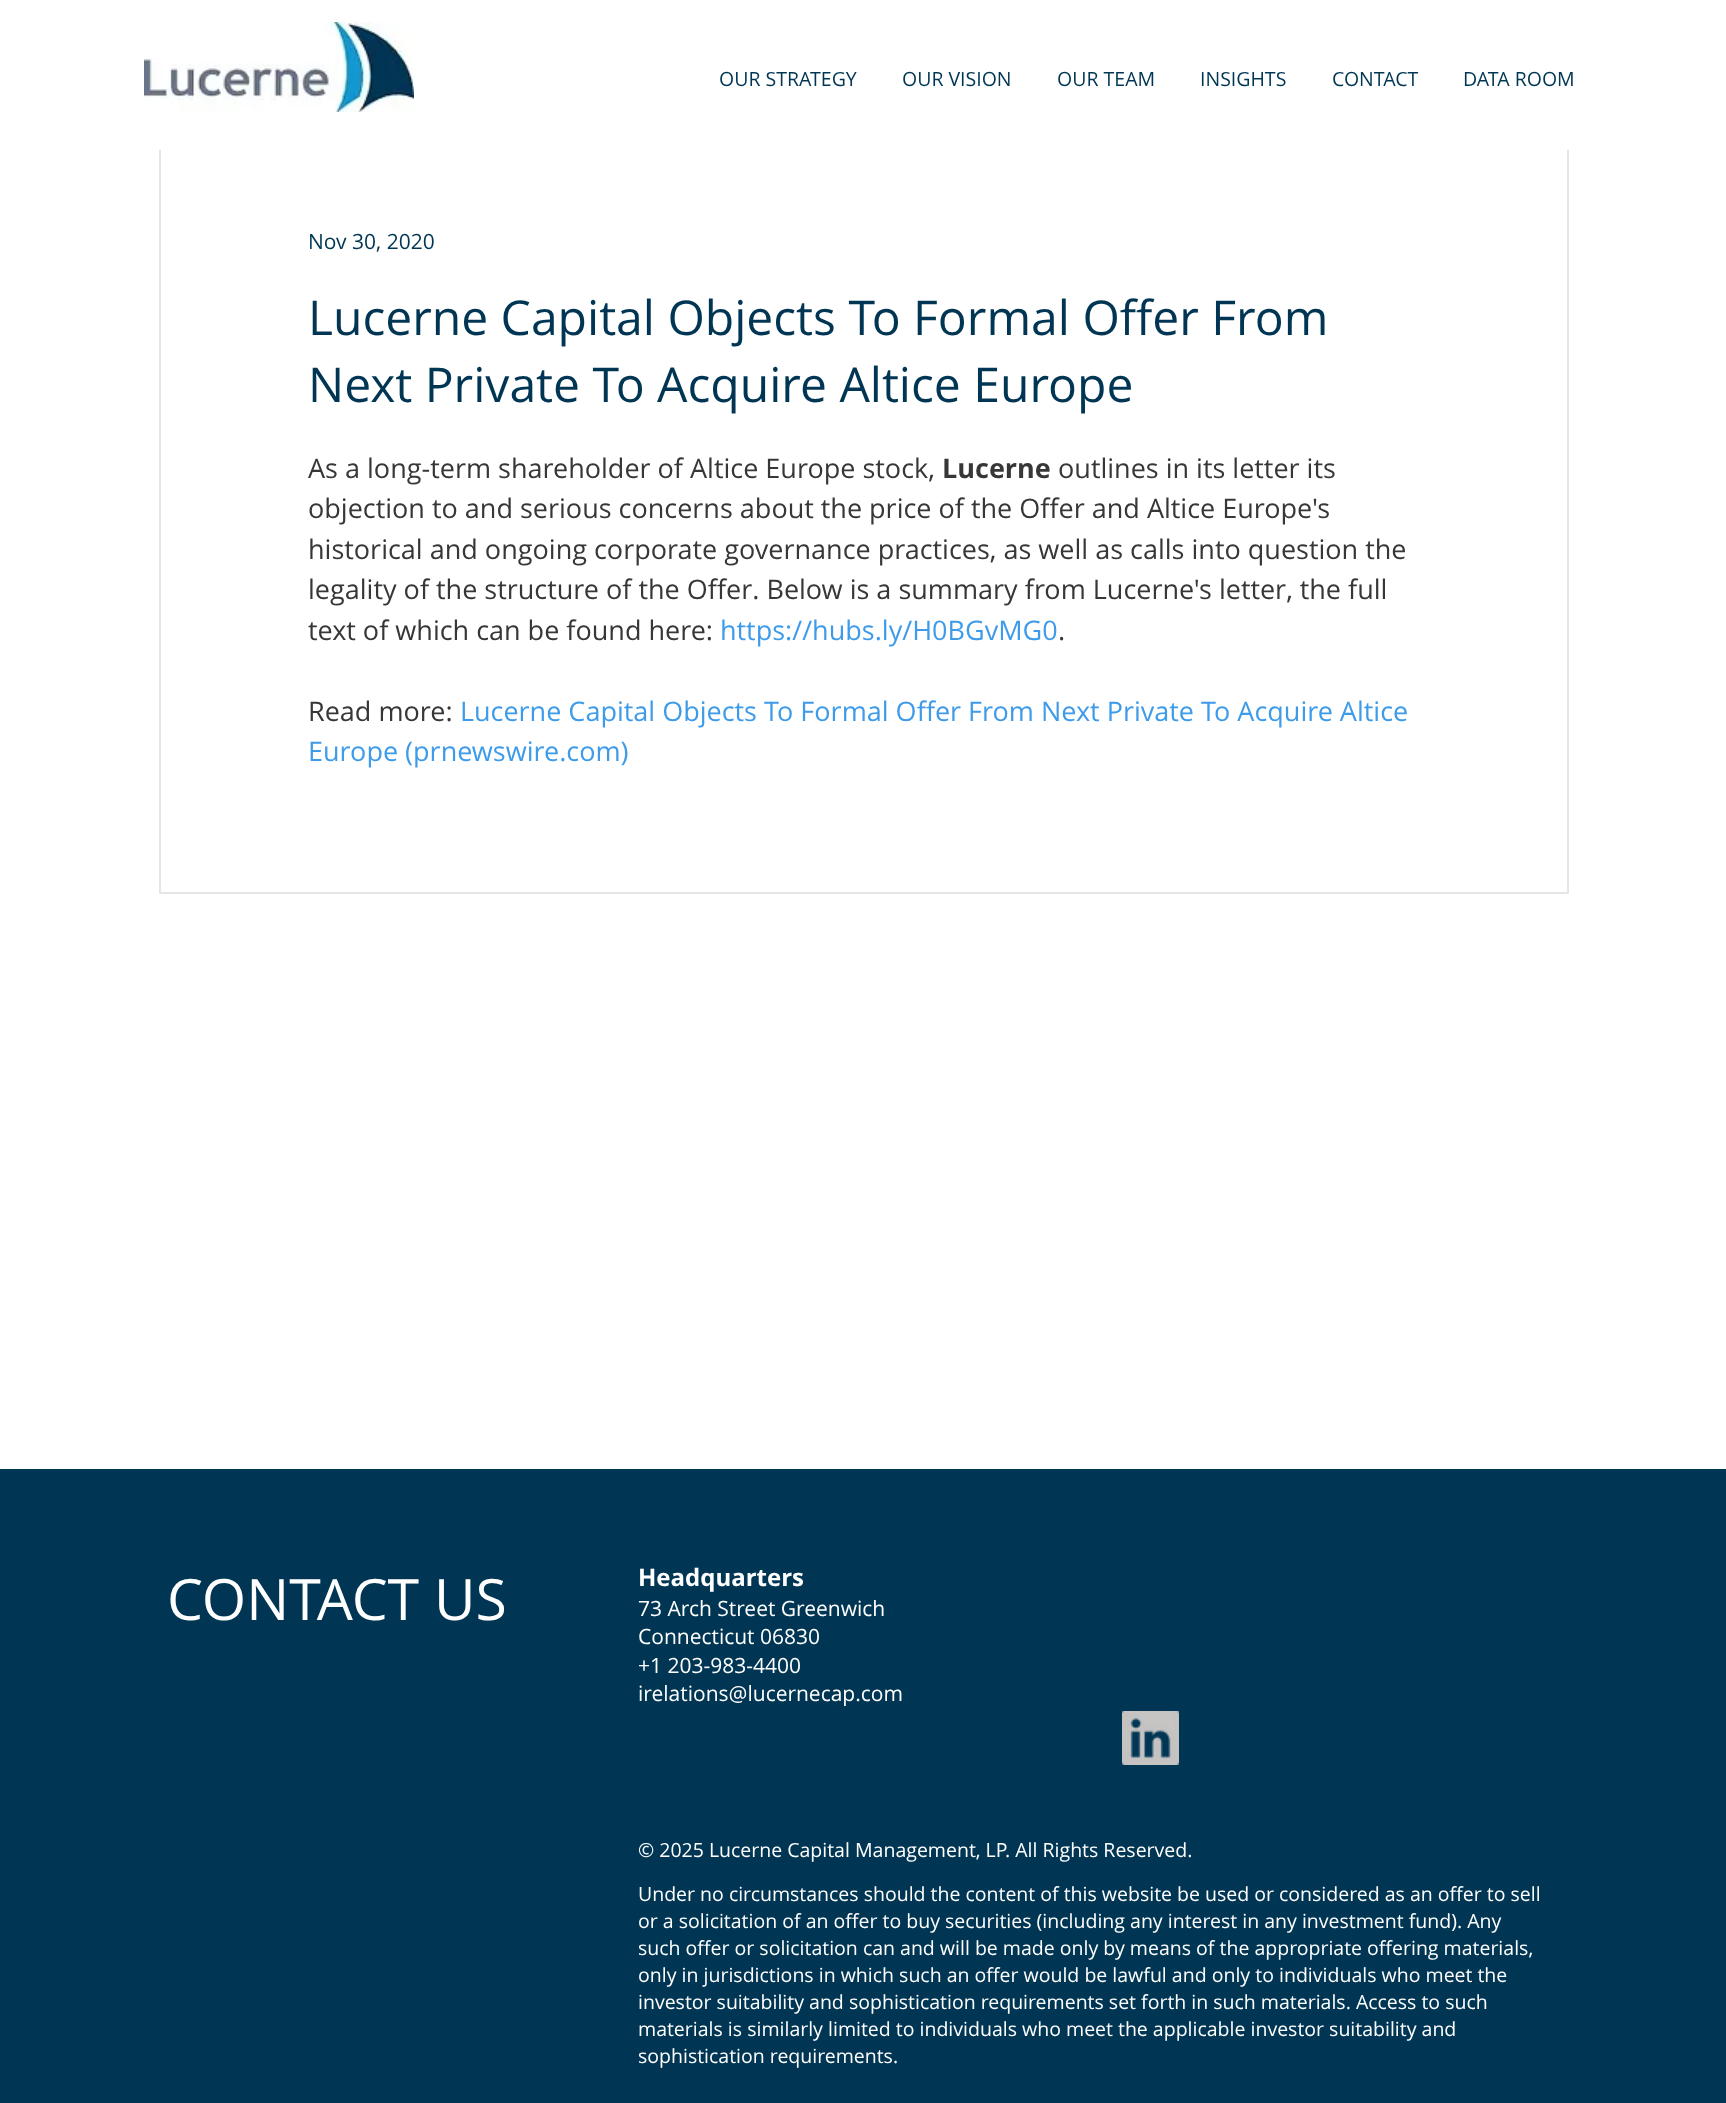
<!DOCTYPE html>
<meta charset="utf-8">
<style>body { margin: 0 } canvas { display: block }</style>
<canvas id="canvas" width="1726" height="2103"></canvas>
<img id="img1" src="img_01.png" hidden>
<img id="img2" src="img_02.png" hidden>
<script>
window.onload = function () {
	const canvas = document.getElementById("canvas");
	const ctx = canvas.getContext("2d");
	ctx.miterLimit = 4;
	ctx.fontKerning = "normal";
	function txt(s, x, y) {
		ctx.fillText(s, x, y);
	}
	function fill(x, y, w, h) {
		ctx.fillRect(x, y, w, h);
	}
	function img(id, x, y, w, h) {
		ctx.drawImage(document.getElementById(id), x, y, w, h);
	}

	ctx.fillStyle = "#FFFFFF";
	fill(0, 0, 1726, 2103);
	img("img1", 144, 22, 270, 90);
	ctx.strokeStyle = "#E6E6E6";
	ctx.lineWidth = 2;
	ctx.strokeRect(160, 135, 1408, 758);
	fill(159, 134, 1410, 16);
	ctx.fillStyle = "#003654";
	fill(0, 1469, 1726, 634);
	img("img2", 1122, 1711, 57, 54);
	ctx.font = "19.5px Open Sans";
	txt("OUR STRATEGY", 719, 86);
	txt("OUR VISION", 902, 86);
	txt("OUR TEAM", 1057, 86);
	txt("INSIGHTS", 1200, 86);
	txt("CONTACT", 1332, 86);
	txt("DATA ROOM", 1463, 86);
	ctx.font = "21px Open Sans";
	txt("Nov 30, 2020", 308, 249);
	ctx.font = "48px Open Sans";
	txt("Lucerne Capital Objects To Formal Offer From", 308, 335);
	txt("Next Private To Acquire Altice Europe", 308, 402);
	ctx.font = "27px Open Sans";
	ctx.fillStyle = "#373737";
	txt("As a long-term shareholder of Altice Europe stock,", 308, 478);
	ctx.font = "bold 27px Open Sans";
	txt("Lucerne", 942, 478);
	ctx.font = "27px Open Sans";
	txt("outlines in its letter its", 1058, 478);
	txt("objection to and serious concerns about the price of the Offer and Altice Europe's", 308, 518);
	txt("historical and ongoing corporate governance practices, as well as calls into question the", 308, 559);
	txt("legality of the structure of the Offer. Below is a summary from Lucerne's letter, the full", 308, 599);
	txt("text of which can be found here:", 308, 640);
	ctx.fillStyle = "#3D9BE9";
	txt("https://hubs.ly/H0BGvMG0", 720, 640);
	ctx.fillStyle = "#373737";
	txt(".", 1058, 640);
	txt("Read more:", 308, 721);
	ctx.fillStyle = "#3D9BE9";
	txt("Lucerne Capital Objects To Formal Offer From Next Private To Acquire Altice", 460, 721);
	txt("Europe (prnewswire.com)", 308, 761);
	ctx.font = "57px Open Sans";
	ctx.fillStyle = "#FFFFFF";
	txt("CONTACT US", 167, 1620);
	ctx.font = "bold 24px Open Sans";
	txt("Headquarters", 638, 1586);
	ctx.font = "21px Open Sans";
	txt("73 Arch Street Greenwich", 638, 1616);
	txt("Connecticut 06830", 638, 1644);
	txt("+1 203-983-4400", 638, 1673);
	txt("irelations@lucernecap.com", 638, 1701);
	ctx.font = "19.5px Open Sans";
	txt("© 2025 Lucerne Capital Management, LP. All Rights Reserved.", 638, 1857);
	txt("Under no circumstances should the content of this website be used or considered as an offer to sell", 638, 1901);
	txt("or a solicitation of an offer to buy securities (including any interest in any investment fund). Any", 638, 1928);
	txt("such offer or solicitation can and will be made only by means of the appropriate offering materials,", 638, 1955);
	txt("only in jurisdictions in which such an offer would be lawful and only to individuals who meet the", 638, 1982);
	txt("investor suitability and sophistication requirements set forth in such materials. Access to such", 638, 2009);
	txt("materials is similarly limited to individuals who meet the applicable investor suitability and", 638, 2036);
	txt("sophistication requirements.", 638, 2063);
};
</script>
